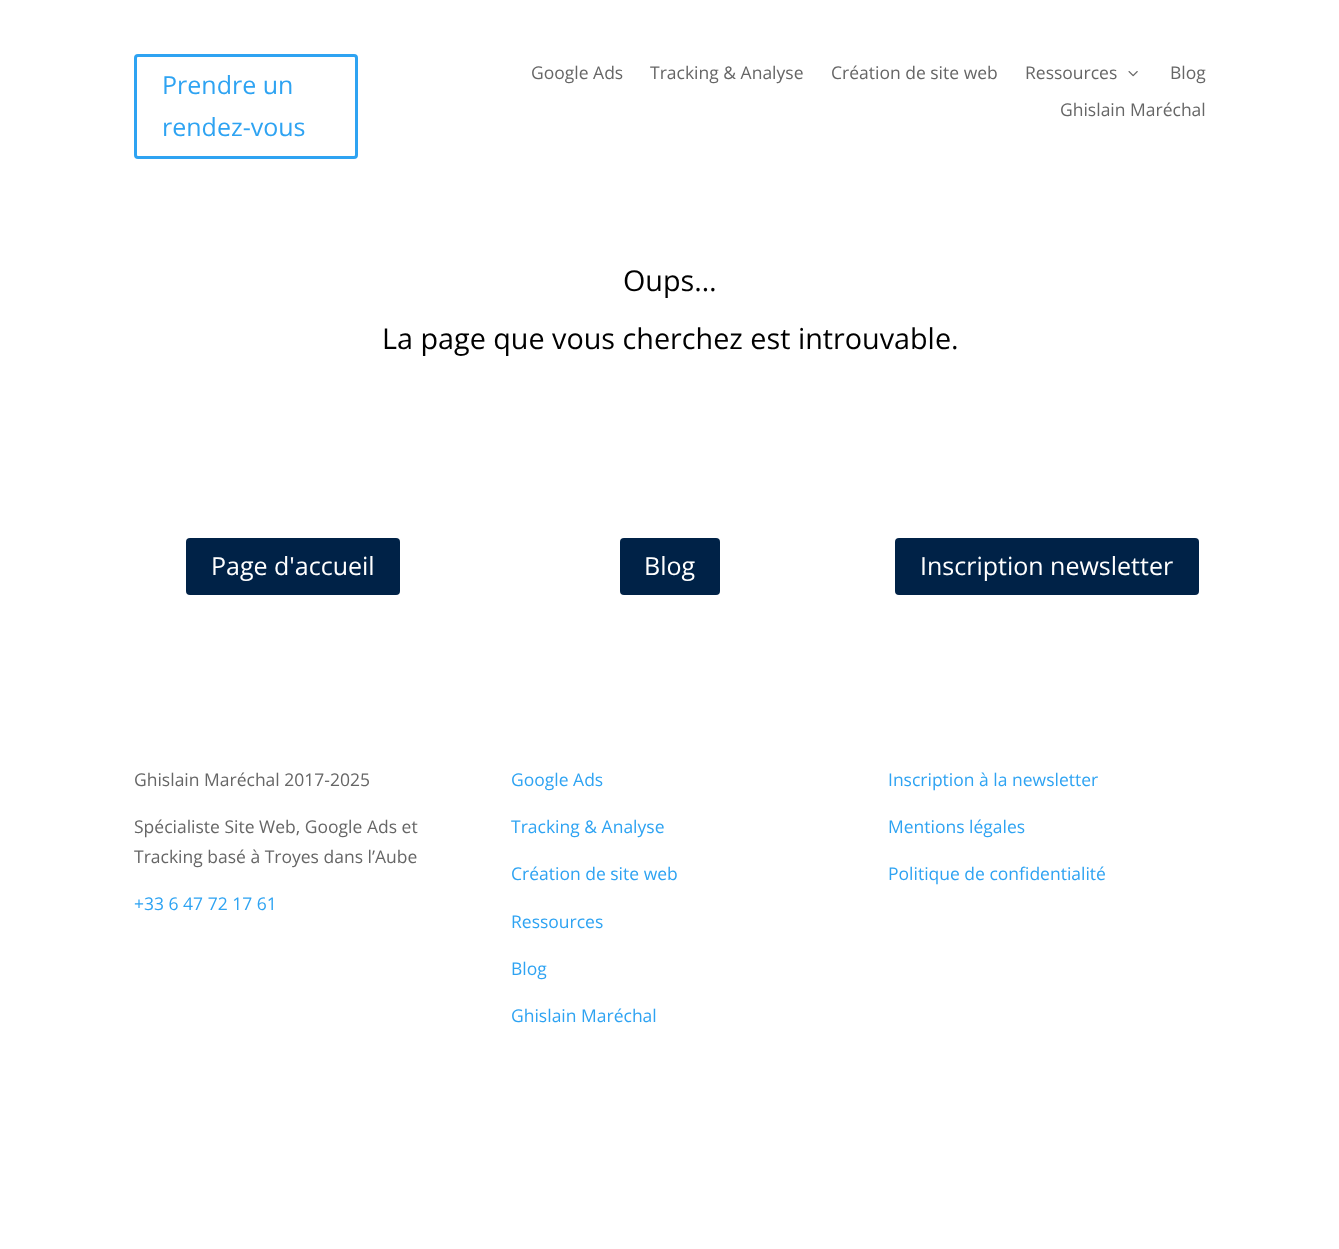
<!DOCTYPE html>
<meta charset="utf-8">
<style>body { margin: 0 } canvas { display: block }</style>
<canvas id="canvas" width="1339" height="1249"></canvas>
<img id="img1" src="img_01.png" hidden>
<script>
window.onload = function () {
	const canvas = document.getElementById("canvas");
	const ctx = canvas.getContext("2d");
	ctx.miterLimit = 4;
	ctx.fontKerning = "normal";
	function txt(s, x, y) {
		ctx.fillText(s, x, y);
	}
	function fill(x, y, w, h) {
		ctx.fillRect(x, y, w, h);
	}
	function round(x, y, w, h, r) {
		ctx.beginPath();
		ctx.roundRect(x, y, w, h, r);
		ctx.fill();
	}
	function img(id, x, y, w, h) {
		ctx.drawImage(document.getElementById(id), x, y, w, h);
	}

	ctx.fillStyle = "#FFFFFF";
	fill(0, 0, 1339, 1249);
	ctx.beginPath();
	ctx.roundRect(135.5, 55.5, 221, 102, 2.5);
	ctx.strokeStyle = "#2EA3F2";
	ctx.lineWidth = 3;
	ctx.stroke();
	img("img1", 1128, 71, 10, 6);
	ctx.fillStyle = "#002247";
	round(186, 538, 214, 57, 4);
	round(620, 538, 100, 57, 4);
	round(895, 538, 304, 57, 4);
	ctx.font = "25px Open Sans";
	ctx.fillStyle = "#2EA3F2";
	txt("Prendre un", 162, 94);
	txt("rendez-vous", 162, 136);
	ctx.font = "17.5px Open Sans";
	ctx.fillStyle = "#666666";
	txt("Google Ads", 531, 79);
	txt("Tracking & Analyse", 650, 79);
	txt("Création de site web", 831, 79);
	txt("Ressources", 1025, 79);
	txt("Blog", 1170, 79);
	txt("Ghislain Maréchal", 1060, 116);
	ctx.font = "28.75px Open Sans";
	ctx.fillStyle = "#000000";
	txt("Oups…", 623, 291);
	txt("La page que vous cherchez est introuvable.", 382, 349);
	ctx.font = "25px Open Sans";
	ctx.fillStyle = "#FFFFFF";
	txt("Page d'accueil", 211, 575);
	txt("Blog", 644, 575);
	txt("Inscription newsletter", 920, 575);
	ctx.font = "17.5px Open Sans";
	ctx.fillStyle = "#666666";
	txt("Ghislain Maréchal 2017-2025", 134, 786);
	txt("Spécialiste Site Web, Google Ads et", 134, 833);
	txt("Tracking basé à Troyes dans l’Aube", 134, 863);
	ctx.fillStyle = "#2EA3F2";
	txt("+33 6 47 72 17 61", 134, 910);
	txt("Google Ads", 511, 786);
	txt("Tracking & Analyse", 511, 833);
	txt("Création de site web", 511, 880);
	txt("Ressources", 511, 928);
	txt("Blog", 511, 975);
	txt("Ghislain Maréchal", 511, 1022);
	txt("Inscription à la newsletter", 888, 786);
	txt("Mentions légales", 888, 833);
	txt("Politique de confidentialité", 888, 880);
};
</script>
